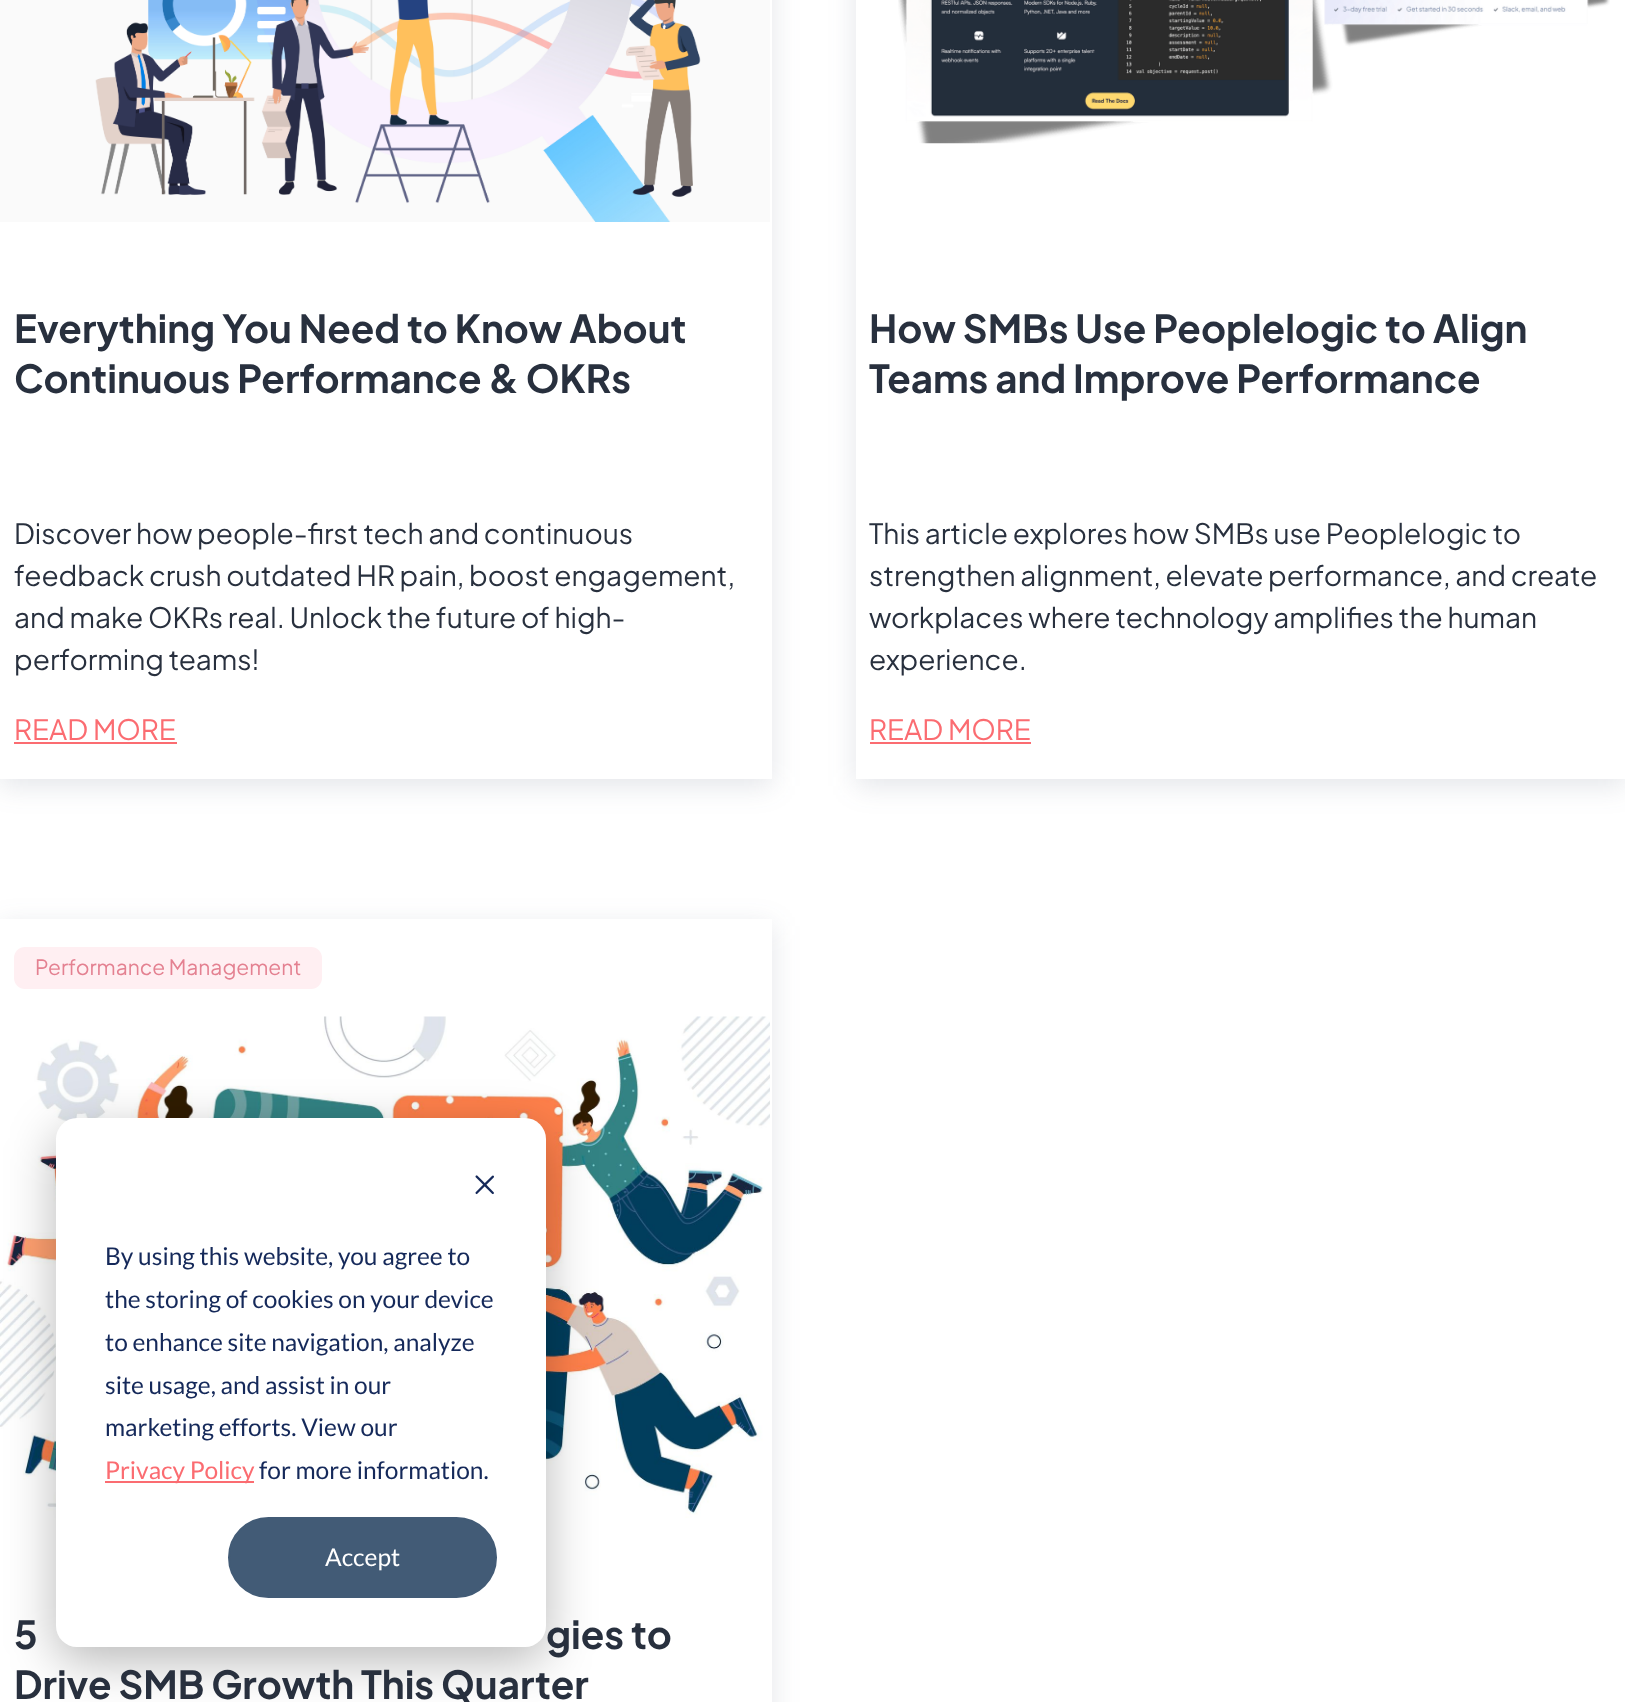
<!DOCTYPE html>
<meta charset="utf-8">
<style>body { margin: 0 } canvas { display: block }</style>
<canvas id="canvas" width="1625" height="1702"></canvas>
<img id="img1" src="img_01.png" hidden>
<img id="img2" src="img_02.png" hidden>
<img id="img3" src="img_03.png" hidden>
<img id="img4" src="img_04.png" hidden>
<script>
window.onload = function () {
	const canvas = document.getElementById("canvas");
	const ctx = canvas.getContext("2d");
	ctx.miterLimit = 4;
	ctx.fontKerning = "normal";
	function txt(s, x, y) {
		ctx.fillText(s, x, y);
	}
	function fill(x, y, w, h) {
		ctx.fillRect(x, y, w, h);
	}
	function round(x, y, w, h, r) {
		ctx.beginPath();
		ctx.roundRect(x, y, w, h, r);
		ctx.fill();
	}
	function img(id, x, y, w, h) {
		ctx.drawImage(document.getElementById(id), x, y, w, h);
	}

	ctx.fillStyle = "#FFFFFF";
	fill(0, 0, 1625, 1702);
	ctx.save();
	ctx.beginPath();
	ctx.moveTo(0, 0);
	ctx.lineTo(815, 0);
	ctx.lineTo(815, 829);
	ctx.lineTo(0, 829);
	ctx.closePath();
	ctx.moveTo(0, -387);
	ctx.lineTo(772, -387);
	ctx.lineTo(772, 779);
	ctx.lineTo(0, 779);
	ctx.closePath();
	ctx.clip("evenodd");
	ctx.fillStyle = "rgba(69, 83, 109, 0.15)";
	ctx.filter = "blur(14px)";
	ctx.beginPath();
	ctx.rect(0, -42, 772, 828);
	ctx.fill();
	ctx.filter = "none";
	ctx.restore();
	img("img1", 0, 0, 770, 222);
	ctx.fillStyle = "#FB6C71";
	fill(14, 742, 163, 2);
	ctx.save();
	ctx.beginPath();
	ctx.moveTo(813, 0);
	ctx.lineTo(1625, 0);
	ctx.lineTo(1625, 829);
	ctx.lineTo(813, 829);
	ctx.closePath();
	ctx.moveTo(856, -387);
	ctx.lineTo(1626, -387);
	ctx.lineTo(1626, 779);
	ctx.lineTo(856, 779);
	ctx.closePath();
	ctx.clip("evenodd");
	ctx.fillStyle = "rgba(69, 83, 109, 0.15)";
	ctx.filter = "blur(14px)";
	ctx.beginPath();
	ctx.rect(856, -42, 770, 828);
	ctx.fill();
	ctx.filter = "none";
	ctx.restore();
	img("img2", 898, 0, 712, 144);
	fill(870, 742, 161, 2);
	ctx.save();
	ctx.beginPath();
	ctx.moveTo(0, 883);
	ctx.lineTo(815, 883);
	ctx.lineTo(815, 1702);
	ctx.lineTo(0, 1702);
	ctx.closePath();
	ctx.moveTo(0, 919);
	ctx.lineTo(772, 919);
	ctx.lineTo(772, 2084);
	ctx.lineTo(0, 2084);
	ctx.closePath();
	ctx.clip("evenodd");
	ctx.fillStyle = "rgba(69, 83, 109, 0.15)";
	ctx.filter = "blur(14px)";
	ctx.beginPath();
	ctx.rect(0, 926, 772, 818);
	ctx.fill();
	ctx.filter = "none";
	ctx.restore();
	ctx.fillStyle = "#FFEFF2";
	round(14, 947, 308, 42, 11);
	img("img3", 0, 1016, 770, 502);
	ctx.fillStyle = "rgba(0, 0, 0, 0.28)";
	ctx.filter = "blur(24.5px)";
	ctx.beginPath();
	ctx.roundRect(56, 1132, 490, 529, 21);
	ctx.fill();
	ctx.filter = "none";
	ctx.fillStyle = "#FFFFFF";
	round(56, 1118, 490, 529, 21);
	img("img4", 475, 1175, 19, 20);
	ctx.fillStyle = "#FB6C71";
	fill(105, 1481, 149, 2);
	ctx.fillStyle = "#425B76";
	ctx.beginPath();
	ctx.roundRect(229, 1518, 267, 79, 39.5);
	ctx.fill();
	ctx.strokeStyle = "#425B76";
	ctx.lineWidth = 2;
	ctx.stroke();
	ctx.font = "bold 38.5px Plus Jakarta Sans";
	ctx.fillStyle = "#28303E";
	txt("Everything You Need to Know About", 14, 343);
	txt("Continuous Performance & OKRs", 14, 393);
	ctx.font = "28px Plus Jakarta Sans";
	txt("Discover how people-first tech and continuous", 14, 544);
	txt("feedback crush outdated HR pain, boost engagement,", 14, 586);
	txt("and make OKRs real. Unlock the future of high-", 14, 628);
	txt("performing teams!", 14, 670);
	ctx.fillStyle = "#FB6C71";
	txt("READ MORE", 14, 740);
	ctx.font = "bold 38.5px Plus Jakarta Sans";
	ctx.fillStyle = "#28303E";
	txt("How SMBs Use Peoplelogic to Align", 869, 343);
	txt("Teams and Improve Performance", 869, 393);
	ctx.font = "28px Plus Jakarta Sans";
	txt("This article explores how SMBs use Peoplelogic to", 869, 544);
	txt("strengthen alignment, elevate performance, and create", 869, 586);
	txt("workplaces where technology amplifies the human", 869, 628);
	txt("experience.", 869, 670);
	ctx.fillStyle = "#FB6C71";
	txt("READ MORE", 869, 740);
	ctx.font = "21px Plus Jakarta Sans";
	ctx.fillStyle = "#E48191";
	txt("Performance Management", 35, 975);
	ctx.font = "bold 38.5px Plus Jakarta Sans";
	ctx.fillStyle = "#28303E";
	txt("5", 14, 1649);
	txt("gies to", 546, 1649);
	txt("Drive SMB Growth This Quarter", 14, 1699);
	ctx.font = "24.5px Lato";
	ctx.fillStyle = "#15295A";
	txt("By using this website, you agree to", 105, 1265);
	txt("the storing of cookies on your device", 105, 1308);
	txt("to enhance site navigation, analyze", 105, 1351);
	txt("site usage, and assist in our", 105, 1394);
	txt("marketing efforts. View our", 105, 1436);
	ctx.fillStyle = "#FB6C71";
	txt("Privacy Policy", 105, 1479);
	ctx.fillStyle = "#15295A";
	txt("for more information.", 259, 1479);
	ctx.fillStyle = "#FFFFFF";
	txt("Accept", 325, 1566);
};
</script>
